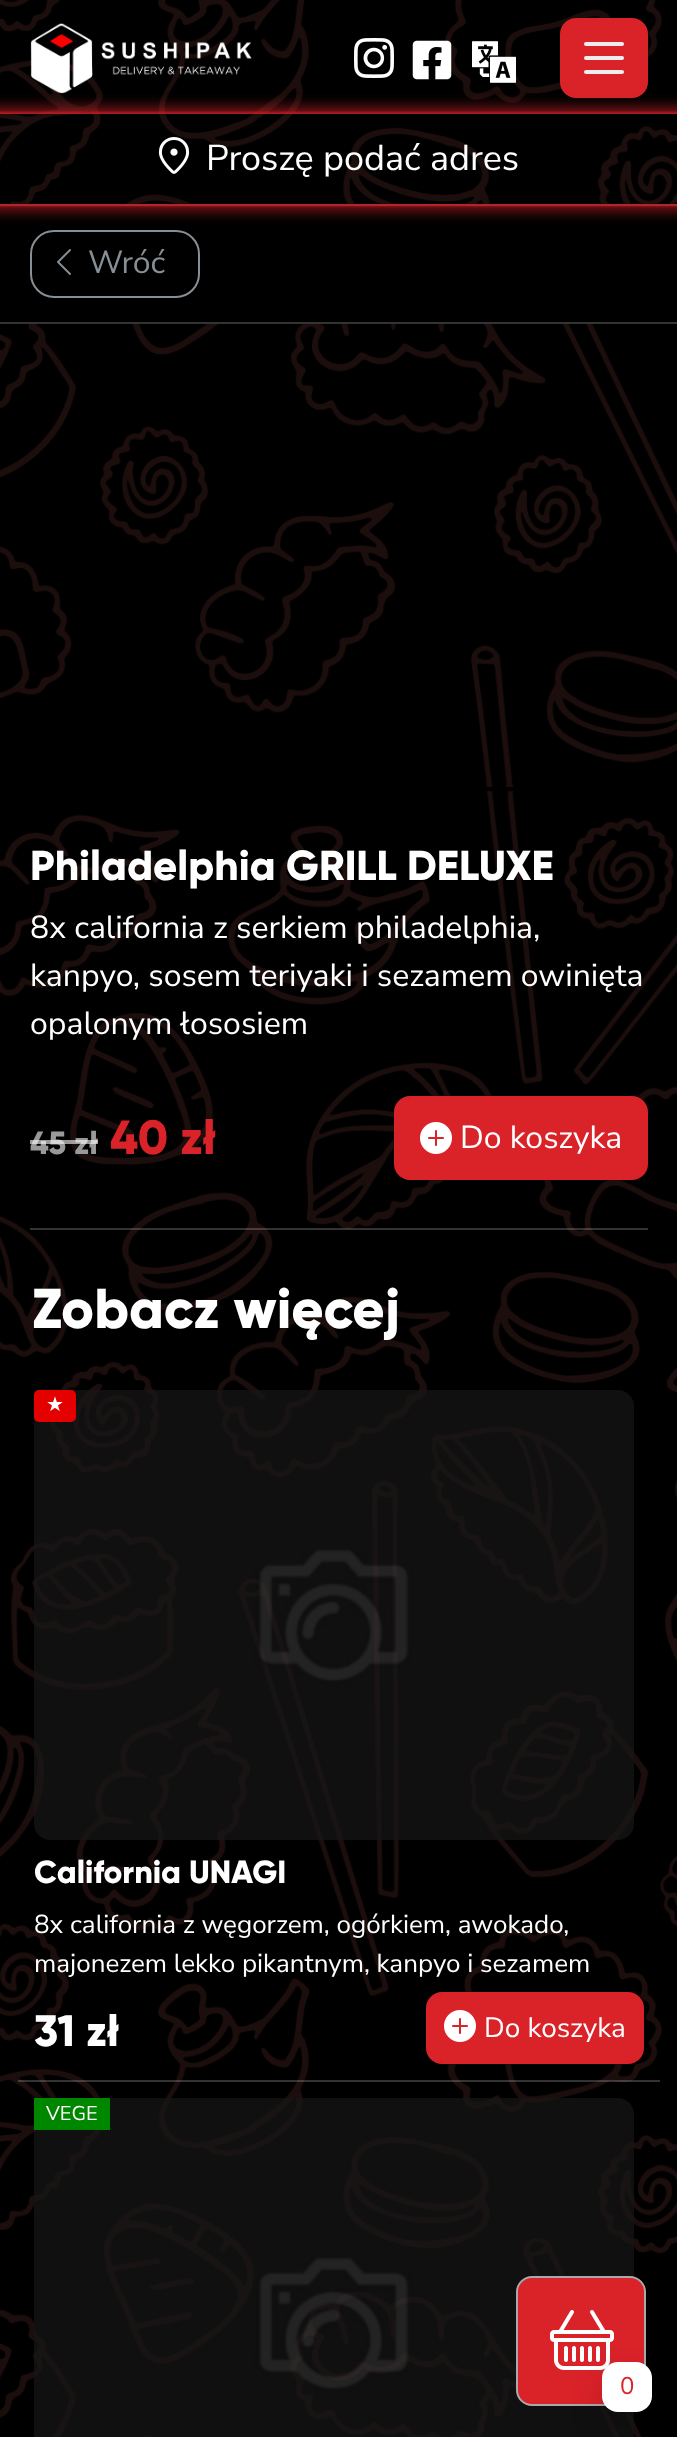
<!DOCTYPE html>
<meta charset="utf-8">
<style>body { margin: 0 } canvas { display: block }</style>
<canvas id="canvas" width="677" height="2437"></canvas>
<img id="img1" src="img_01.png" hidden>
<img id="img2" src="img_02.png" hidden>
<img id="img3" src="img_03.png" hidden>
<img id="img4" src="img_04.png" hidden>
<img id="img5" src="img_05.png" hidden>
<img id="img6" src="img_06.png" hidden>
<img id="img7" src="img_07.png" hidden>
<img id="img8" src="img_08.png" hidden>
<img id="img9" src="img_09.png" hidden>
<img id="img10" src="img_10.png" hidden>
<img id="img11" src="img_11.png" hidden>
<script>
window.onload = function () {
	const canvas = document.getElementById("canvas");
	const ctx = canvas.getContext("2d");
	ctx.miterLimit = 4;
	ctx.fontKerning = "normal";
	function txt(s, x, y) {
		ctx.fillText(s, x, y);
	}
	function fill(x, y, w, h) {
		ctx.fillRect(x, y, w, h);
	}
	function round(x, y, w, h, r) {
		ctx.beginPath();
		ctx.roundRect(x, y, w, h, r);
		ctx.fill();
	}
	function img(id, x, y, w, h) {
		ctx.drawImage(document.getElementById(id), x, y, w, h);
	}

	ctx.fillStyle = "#000000";
	fill(0, 0, 677, 2437);
	img("img1", 0, 0, 677, 2437);
	ctx.fillStyle = "rgba(0, 0, 0, 0.1)";
	fill(42, 112, 251, 2);
	img("img2", 30, 23, 222, 71);
	img("img3", 354, 38, 40, 40);
	img("img4", 412, 40, 40, 40);
	img("img5", 472, 41, 44, 42);
	ctx.fillStyle = "#DA2229";
	round(560, 18, 88, 80, 16);
	ctx.fillStyle = "#EEEEEE";
	round(584, 42, 40, 4, 2);
	round(584, 56, 40, 4, 2);
	round(584, 70, 40, 4, 2);
	ctx.fillStyle = "#000000";
	fill(0, 206, 677, 116);
	ctx.fillStyle = "#333333";
	fill(0, 204, 677, 2);
	ctx.save();
	ctx.beginPath();
	ctx.moveTo(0, 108);
	ctx.lineTo(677, 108);
	ctx.lineTo(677, 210);
	ctx.lineTo(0, 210);
	ctx.closePath();
	ctx.moveTo(-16, 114);
	ctx.lineTo(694, 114);
	ctx.bezierCurveTo(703, 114, 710, 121, 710, 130);
	ctx.lineTo(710, 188);
	ctx.bezierCurveTo(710, 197, 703, 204, 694, 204);
	ctx.lineTo(-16, 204);
	ctx.bezierCurveTo(-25, 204, -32, 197, -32, 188);
	ctx.lineTo(-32, 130);
	ctx.bezierCurveTo(-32, 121, -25, 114, -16, 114);
	ctx.closePath();
	ctx.clip("evenodd");
	ctx.fillStyle = "rgba(218, 34, 41, 0.65)";
	ctx.filter = "blur(1px)";
	ctx.beginPath();
	ctx.roundRect(-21, 112, 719, 94, 18);
	ctx.fill();
	ctx.filter = "none";
	ctx.restore();
	ctx.beginPath();
	ctx.roundRect(31, 231, 168, 66, 23);
	ctx.strokeStyle = "#868E96";
	ctx.lineWidth = 2;
	ctx.stroke();
	ctx.save();
	ctx.beginPath();
	ctx.moveTo(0, 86);
	ctx.lineTo(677, 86);
	ctx.lineTo(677, 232);
	ctx.lineTo(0, 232);
	ctx.closePath();
	ctx.moveTo(-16, 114);
	ctx.lineTo(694, 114);
	ctx.bezierCurveTo(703, 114, 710, 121, 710, 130);
	ctx.lineTo(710, 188);
	ctx.bezierCurveTo(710, 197, 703, 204, 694, 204);
	ctx.lineTo(-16, 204);
	ctx.bezierCurveTo(-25, 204, -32, 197, -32, 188);
	ctx.lineTo(-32, 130);
	ctx.bezierCurveTo(-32, 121, -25, 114, -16, 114);
	ctx.closePath();
	ctx.clip("evenodd");
	ctx.fillStyle = "rgba(218, 34, 41, 0.65)";
	ctx.filter = "blur(7px)";
	ctx.beginPath();
	ctx.roundRect(-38, 108, 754, 102, 22);
	ctx.fill();
	ctx.filter = "none";
	ctx.restore();
	img("img6", 158, 137, 32, 37);
	fill(0, 322, 677, 2);
	img("img7", 57, 249, 14, 26);
	ctx.fillStyle = "#DA2229";
	ctx.beginPath();
	ctx.roundRect(395, 1097, 252, 82, 15);
	ctx.fill();
	ctx.strokeStyle = "#DA2229";
	ctx.stroke();
	img("img8", 420, 1122, 32, 32);
	ctx.fillStyle = "rgba(255, 255, 255, 0.2)";
	fill(30, 1228, 618, 2);
	fill(18, 2080, 642, 2);
	img("img9", 34, 1390, 600, 450);
	ctx.fillStyle = "#E50000";
	round(34, 1390, 42, 32, 5);
	ctx.fillStyle = "#DA2229";
	ctx.beginPath();
	ctx.roundRect(427, 1993, 216, 70, 15);
	ctx.fill();
	ctx.stroke();
	img("img8", 444, 2010, 32, 32);
	img("img10", 34, 2098, 600, 339);
	ctx.fillStyle = "#008700";
	fill(34, 2098, 76, 32);
	ctx.fillStyle = "#DA2229";
	ctx.beginPath();
	ctx.roundRect(517, 2277, 128, 128, 15);
	ctx.fill();
	ctx.strokeStyle = "#A9A9A9";
	ctx.stroke();
	img("img11", 550, 2310, 64, 60);
	ctx.fillStyle = "rgba(0, 0, 0, 0.15)";
	ctx.filter = "blur(16px)";
	ctx.beginPath();
	ctx.roundRect(602, 2378, 50, 50, 16);
	ctx.fill();
	ctx.filter = "none";
	ctx.fillStyle = "#FFFFFF";
	round(602, 2362, 50, 50, 16);
	ctx.font = "36px Nunito Sans";
	txt("Proszę podać adres", 206, 170);
	ctx.font = "32px Nunito Sans";
	ctx.fillStyle = "#868E96";
	txt("Wróć", 88, 273);
	ctx.font = "800 41.9px Gilroy";
	ctx.fillStyle = "#FFFFFF";
	txt("Philadelphia GRILL DELUXE", 30, 880);
	ctx.font = "32px Nunito Sans";
	txt("8x california z serkiem philadelphia,", 30, 938);
	txt("kanpyo, sosem teriyaki i sezamem owinięta", 30, 986);
	txt("opalonym łososiem", 30, 1034);
	ctx.font = "800 32px Gilroy";
	ctx.fillStyle = "#999999";
	txt("45", 30, 1154);
	txt("zł", 74, 1154);
	ctx.fillStyle = "rgba(255, 255, 255, 0.6)";
	fill(30, 1140, 44, 4);
	fill(74, 1140, 24, 4);
	ctx.font = "800 48px Gilroy";
	ctx.fillStyle = "#DA2229";
	txt("40 zł", 110, 1154);
	ctx.font = "32px Nunito Sans";
	ctx.fillStyle = "#FFFFFF";
	txt("Do koszyka", 460, 1148);
	ctx.font = "800 56px Gilroy";
	txt("Zobacz więcej", 32, 1328);
	ctx.font = "20px DejaVu Sans";
	txt("★", 46, 1411);
	ctx.font = "800 32px Gilroy";
	txt("California UNAGI", 34, 1883);
	ctx.font = "26px Nunito Sans";
	txt("8x california z węgorzem, ogórkiem, awokado,", 34, 1933);
	txt("majonezem lekko pikantnym, kanpyo i sezamem", 34, 1972);
	ctx.font = "800 44px Gilroy";
	txt("31 zł", 34, 2046);
	ctx.font = "28px Nunito Sans";
	txt("Do koszyka", 484, 2037);
	ctx.font = "20px Nunito Sans";
	txt("VEGE", 46, 2120);
	ctx.font = "24px Nunito Sans";
	ctx.fillStyle = "#DA2229";
	txt("0", 620, 2394);
};
</script>
